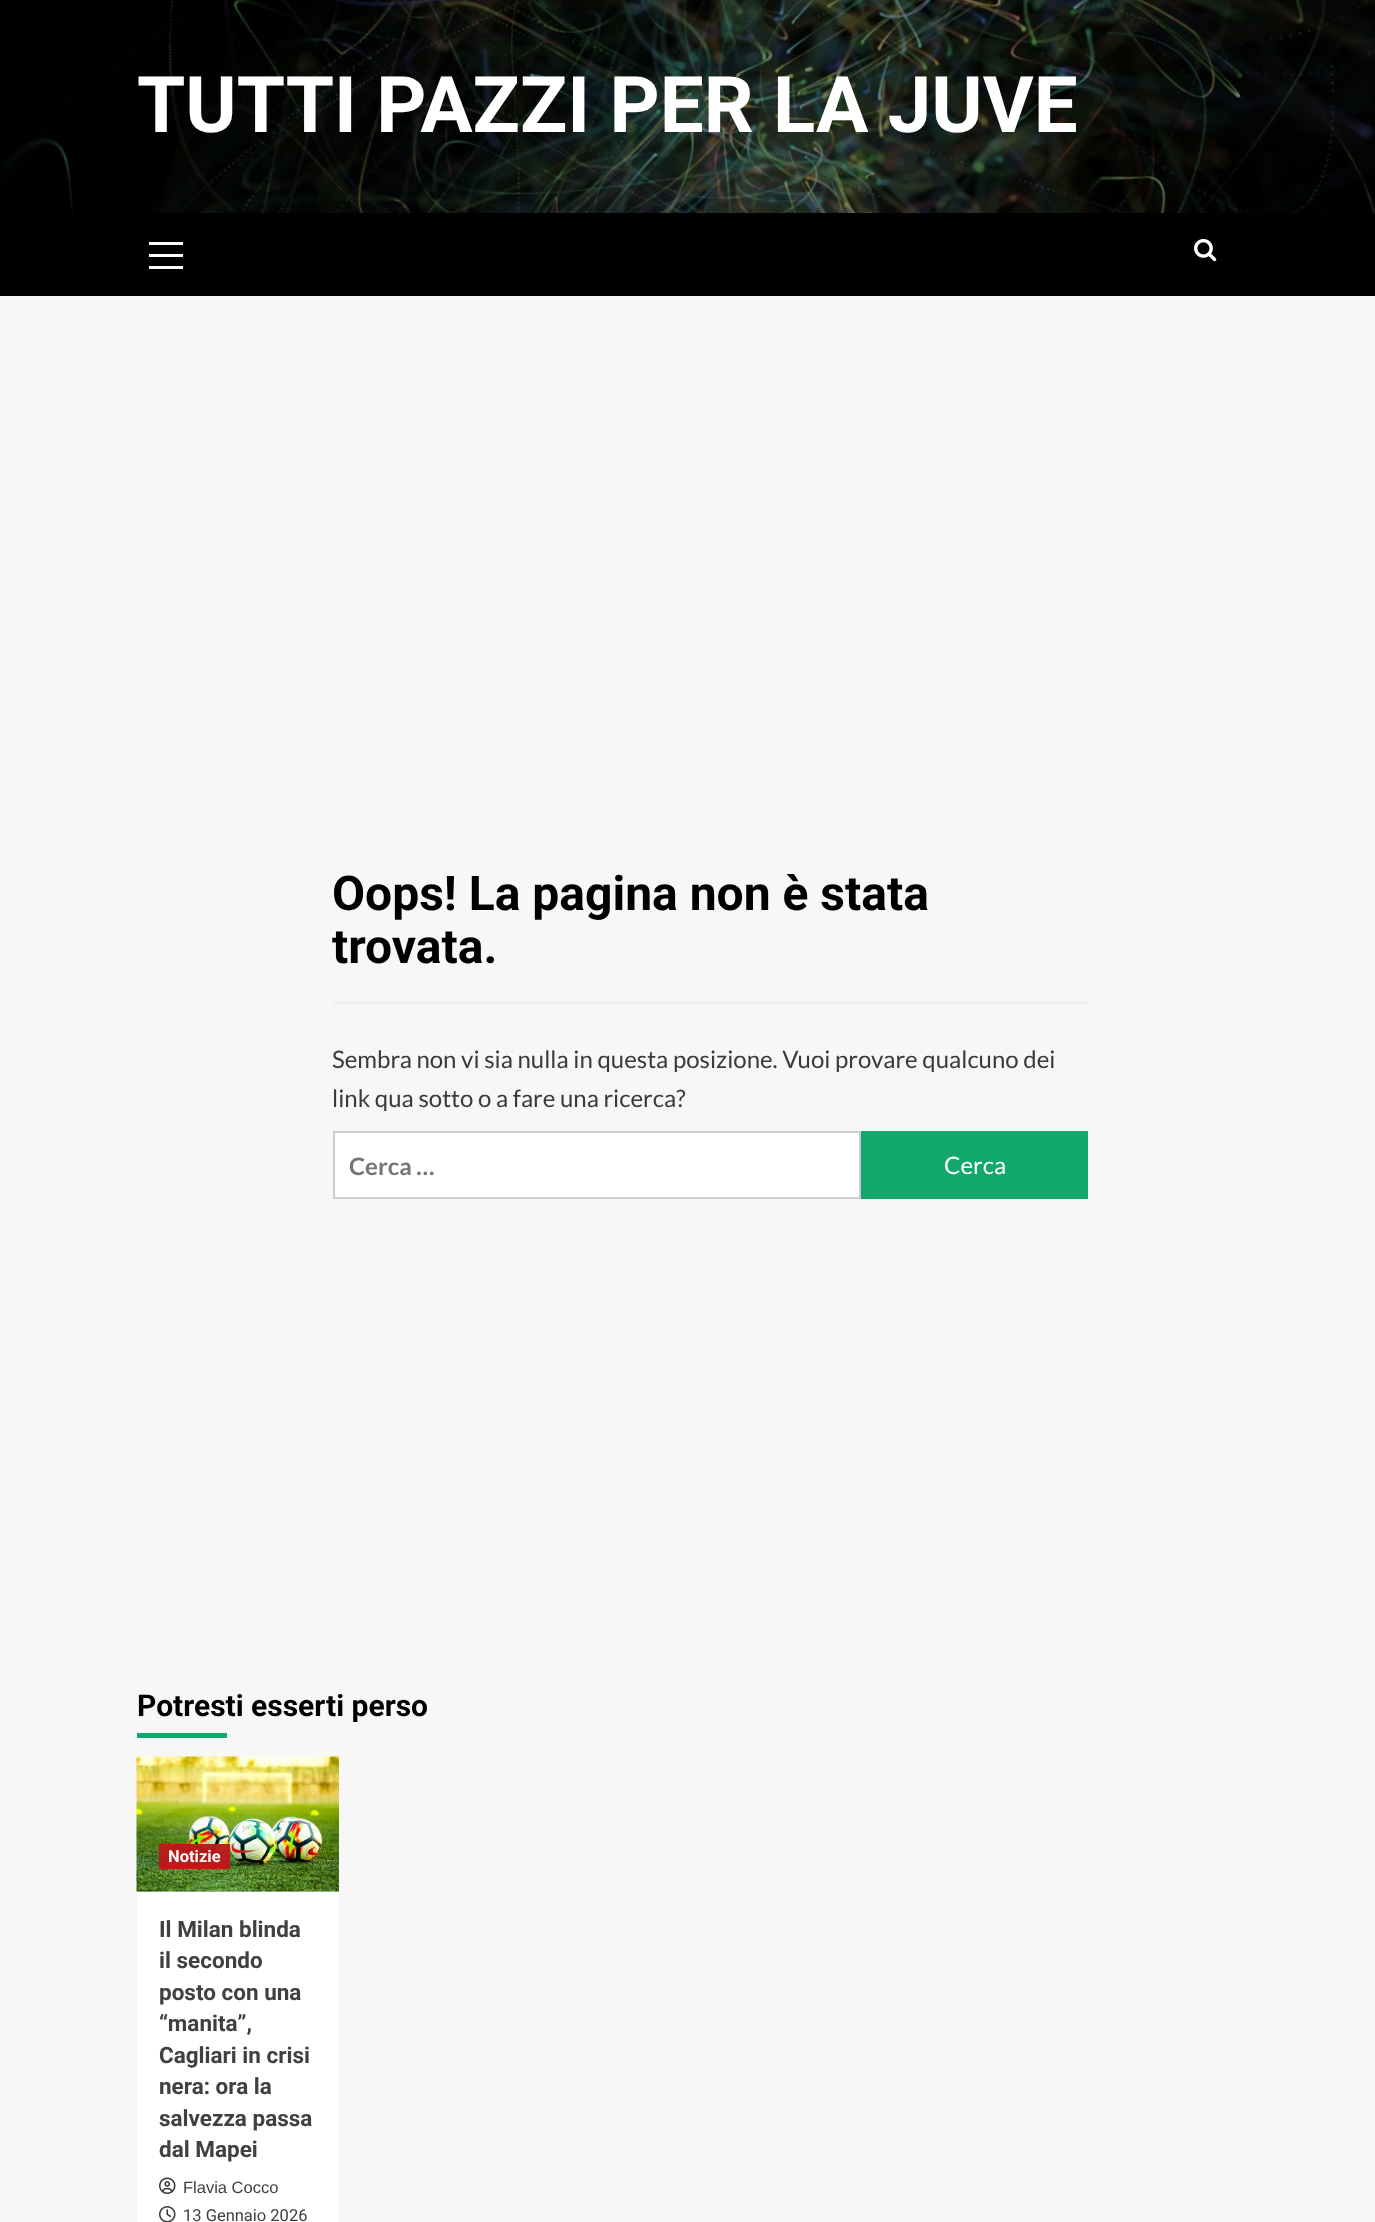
<!DOCTYPE html>
<meta charset="utf-8">
<style>body { margin: 0 } canvas { display: block }</style>
<canvas id="canvas" width="1375" height="2222"></canvas>
<img id="img1" src="img_01.png" hidden>
<img id="img2" src="img_02.png" hidden>
<img id="img3" src="img_03.png" hidden>
<img id="img4" src="img_04.png" hidden>
<img id="img5" src="img_05.png" hidden>
<script>
window.onload = function () {
	const canvas = document.getElementById("canvas");
	const ctx = canvas.getContext("2d");
	ctx.miterLimit = 4;
	ctx.fontKerning = "normal";
	function txt(s, x, y) {
		ctx.fillText(s, x, y);
	}
	function fill(x, y, w, h) {
		ctx.fillRect(x, y, w, h);
	}
	function img(id, x, y, w, h) {
		ctx.drawImage(document.getElementById(id), x, y, w, h);
	}

	ctx.fillStyle = "#F7F7F7";
	fill(0, 0, 1375, 2222);
	img("img1", 0, 0, 1375, 213);
	ctx.fillStyle = "#000000";
	fill(0, 213, 1375, 83);
	ctx.fillStyle = "#FFFFFF";
	fill(149, 254, 34, 3);
	fill(149, 242, 34, 3);
	fill(149, 266, 34, 3);
	img("img2", 1194, 238, 23, 24);
	ctx.fillStyle = "#EEEEEE";
	fill(333, 1002, 756, 2);
	ctx.fillStyle = "#FFFFFF";
	ctx.beginPath();
	ctx.rect(334, 1132, 526, 66);
	ctx.fill();
	ctx.strokeStyle = "#CCCCCC";
	ctx.lineWidth = 2;
	ctx.stroke();
	ctx.fillStyle = "#12A86B";
	fill(861, 1131, 227, 68);
	fill(137, 1733, 90, 5);
	ctx.fillStyle = "#FFFFFF";
	fill(137, 1892, 202, 330);
	ctx.fillStyle = "#D8D8D8";
	fill(137, 1891, 202, 1);
	img("img3", 136, 1756, 203, 136);
	ctx.fillStyle = "rgba(187, 25, 25, 0.96)";
	fill(159, 1844, 71, 25);
	img("img4", 159, 2177, 17, 17);
	img("img5", 159, 2206, 17, 16);
	ctx.font = "bold 78px Roboto";
	ctx.fillStyle = "#FFFFFF";
	txt("TUTTI PAZZI PER LA JUVE", 137, 132);
	ctx.font = "bold 48px Roboto";
	ctx.fillStyle = "#000000";
	txt("Oops! La pagina non è stata", 332, 910);
	txt("trovata.", 332, 963);
	ctx.font = "24px Lato";
	ctx.fillStyle = "#3A3A3A";
	txt("Sembra non vi sia nulla in questa posizione. Vuoi provare qualcuno dei", 332, 1068);
	txt("link qua sotto o a fare una ricerca?", 332, 1107);
	ctx.save();
	ctx.beginPath();
	ctx.rect(350, 1151, 489, 28);
	ctx.clip();
	ctx.font = "bold 24px Lato";
	ctx.fillStyle = "#757575";
	txt("Cerca …", 349, 1175);
	ctx.restore();
	ctx.fillStyle = "#FFFFFF";
	txt("Cerca", 944, 1174);
	ctx.font = "bold 30px Roboto";
	ctx.fillStyle = "#000000";
	txt("Potresti esserti perso", 137, 1716);
	ctx.font = "bold 16.5px Roboto";
	ctx.fillStyle = "#FCF6F6";
	txt("Notizie", 168, 1862);
	ctx.font = "bold 22.5px Roboto";
	ctx.fillStyle = "#404040";
	txt("Il Milan blinda", 159, 1937);
	txt("il secondo", 159, 1968);
	txt("posto con una", 159, 2000);
	txt("“manita”,", 159, 2031);
	txt("Cagliari in crisi", 159, 2063);
	txt("nera: ora la", 159, 2094);
	txt("salvezza passa", 159, 2126);
	txt("dal Mapei", 159, 2157);
	ctx.font = "16.5px Liberation Sans";
	txt("Flavia Cocco", 183, 2193);
	ctx.font = "16.5px Roboto";
	txt("13 Gennaio 2026", 183, 2221);
};
</script>
